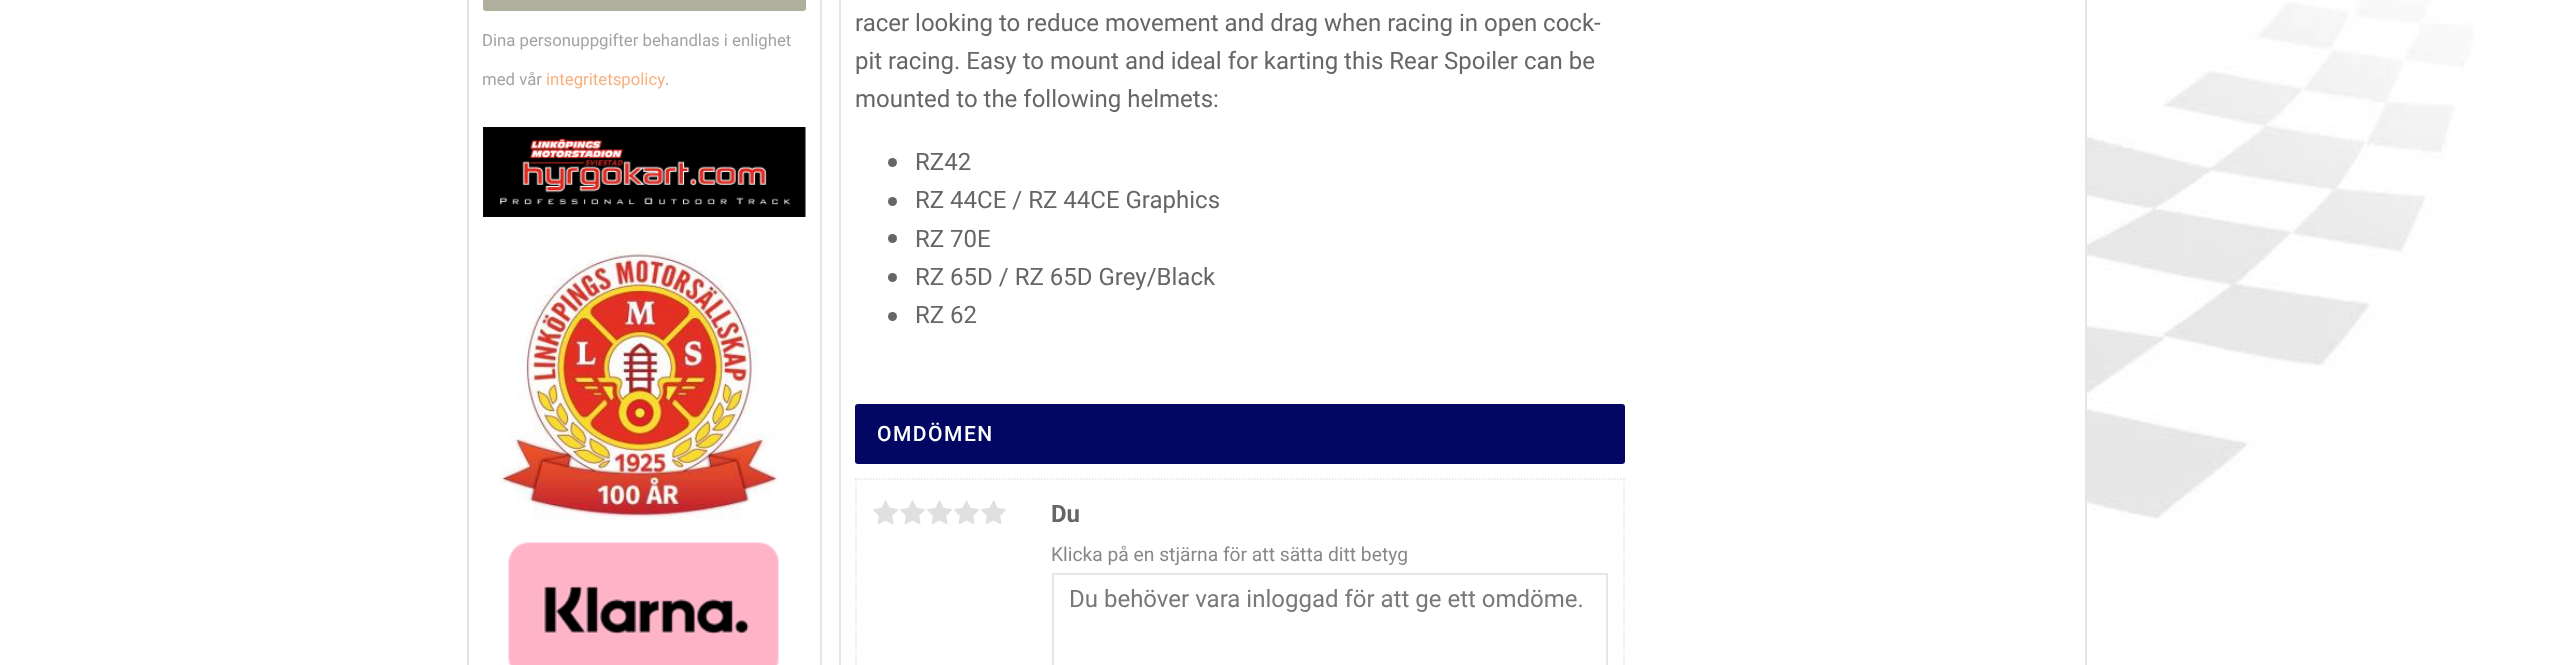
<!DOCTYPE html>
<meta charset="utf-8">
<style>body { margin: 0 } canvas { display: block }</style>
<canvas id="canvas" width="2551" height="665"></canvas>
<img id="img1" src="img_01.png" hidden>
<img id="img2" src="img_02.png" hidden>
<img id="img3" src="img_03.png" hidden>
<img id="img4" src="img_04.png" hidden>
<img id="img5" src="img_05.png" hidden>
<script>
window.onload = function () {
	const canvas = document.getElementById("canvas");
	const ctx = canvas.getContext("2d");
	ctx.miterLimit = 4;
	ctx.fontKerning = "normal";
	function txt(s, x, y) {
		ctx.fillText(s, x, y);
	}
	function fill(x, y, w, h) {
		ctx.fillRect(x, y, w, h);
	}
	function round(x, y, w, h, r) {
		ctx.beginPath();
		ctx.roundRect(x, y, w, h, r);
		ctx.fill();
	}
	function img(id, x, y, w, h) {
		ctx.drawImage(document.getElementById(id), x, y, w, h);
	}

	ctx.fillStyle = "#FFFFFF";
	fill(0, 0, 2551, 665);
	img("img1", 2087, 0, 387, 519);
	ctx.strokeStyle = "#E5E5E5";
	ctx.lineWidth = 2;
	ctx.strokeRect(468, -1, 353, 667);
	ctx.fillStyle = "#B0AE9C";
	round(483, -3, 323, 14, 3);
	img("img2", 483, 127, 323, 90);
	img("img3", 500, 251, 279, 269);
	img("img4", 508, 542, 271, 123);
	ctx.strokeRect(840, -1, 1246, 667);
	ctx.fillStyle = "#666666";
	ctx.beginPath();
	ctx.arc(892.5, 162.5, 4.5, 0, Math.PI * 2);
	ctx.fill();
	ctx.beginPath();
	ctx.arc(892.5, 201.5, 4.5, 0, Math.PI * 2);
	ctx.fill();
	ctx.beginPath();
	ctx.arc(892.5, 238.5, 4.5, 0, Math.PI * 2);
	ctx.fill();
	ctx.beginPath();
	ctx.arc(892.5, 277.5, 4.5, 0, Math.PI * 2);
	ctx.fill();
	ctx.beginPath();
	ctx.arc(892.5, 316.5, 4.5, 0, Math.PI * 2);
	ctx.fill();
	ctx.fillStyle = "#030764";
	round(855, 404, 770, 60, 3);
	ctx.beginPath();
	ctx.moveTo(855, 479);
	ctx.lineTo(1624.5, 479);
	ctx.lineWidth = 1.5;
	ctx.setLineDash([1.5, 1.5]);
	ctx.stroke();
	ctx.beginPath();
	ctx.moveTo(1624, 478.5);
	ctx.lineTo(1624, 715.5);
	ctx.stroke();
	ctx.beginPath();
	ctx.moveTo(856, 478.5);
	ctx.lineTo(856, 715.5);
	ctx.stroke();
	img("img5", 873, 500, 25, 25);
	img("img5", 900, 500, 25, 25);
	img("img5", 927, 500, 25, 25);
	img("img5", 954, 500, 25, 25);
	img("img5", 981, 500, 25, 25);
	ctx.lineWidth = 2;
	ctx.setLineDash([]);
	ctx.strokeRect(1053, 574, 554, 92);
	ctx.font = "16.75px Roboto";
	ctx.fillStyle = "#A3A3A3";
	txt("Dina personuppgifter behandlas i enlighet", 482, 46);
	txt("med vår", 482, 85);
	ctx.fillStyle = "#F9B07B";
	txt("integritetspolicy", 546, 85);
	ctx.fillStyle = "#A3A3A3";
	txt(".", 665, 85);
	ctx.font = "24px Roboto";
	ctx.fillStyle = "#666666";
	txt("racer looking to reduce movement and drag when racing in open cock-", 855, 31);
	txt("pit racing. Easy to mount and ideal for karting this Rear Spoiler can be", 855, 69);
	txt("mounted to the following helmets:", 855, 107);
	txt("RZ42", 915, 170);
	txt("RZ 44CE / RZ 44CE Graphics", 915, 208);
	txt("RZ 70E", 915, 247);
	txt("RZ 65D / RZ 65D Grey/Black", 915, 285);
	txt("RZ 62", 915, 323);
	ctx.letterSpacing = "1.5px";
	ctx.font = "500 21px Roboto";
	ctx.fillStyle = "#FFFFFF";
	txt("OMDÖMEN", 877, 441);
	ctx.letterSpacing = "0px";
	ctx.font = "bold 24px Roboto";
	ctx.fillStyle = "#666666";
	txt("Du", 1051, 522);
	ctx.font = "19.25px Roboto";
	ctx.fillStyle = "#888888";
	txt("Klicka på en stjärna för att sätta ditt betyg", 1051, 561);
	ctx.font = "24px Roboto";
	ctx.fillStyle = "#787878";
	txt("Du behöver vara inloggad för att ge ett omdöme.", 1069, 607);
};
</script>
